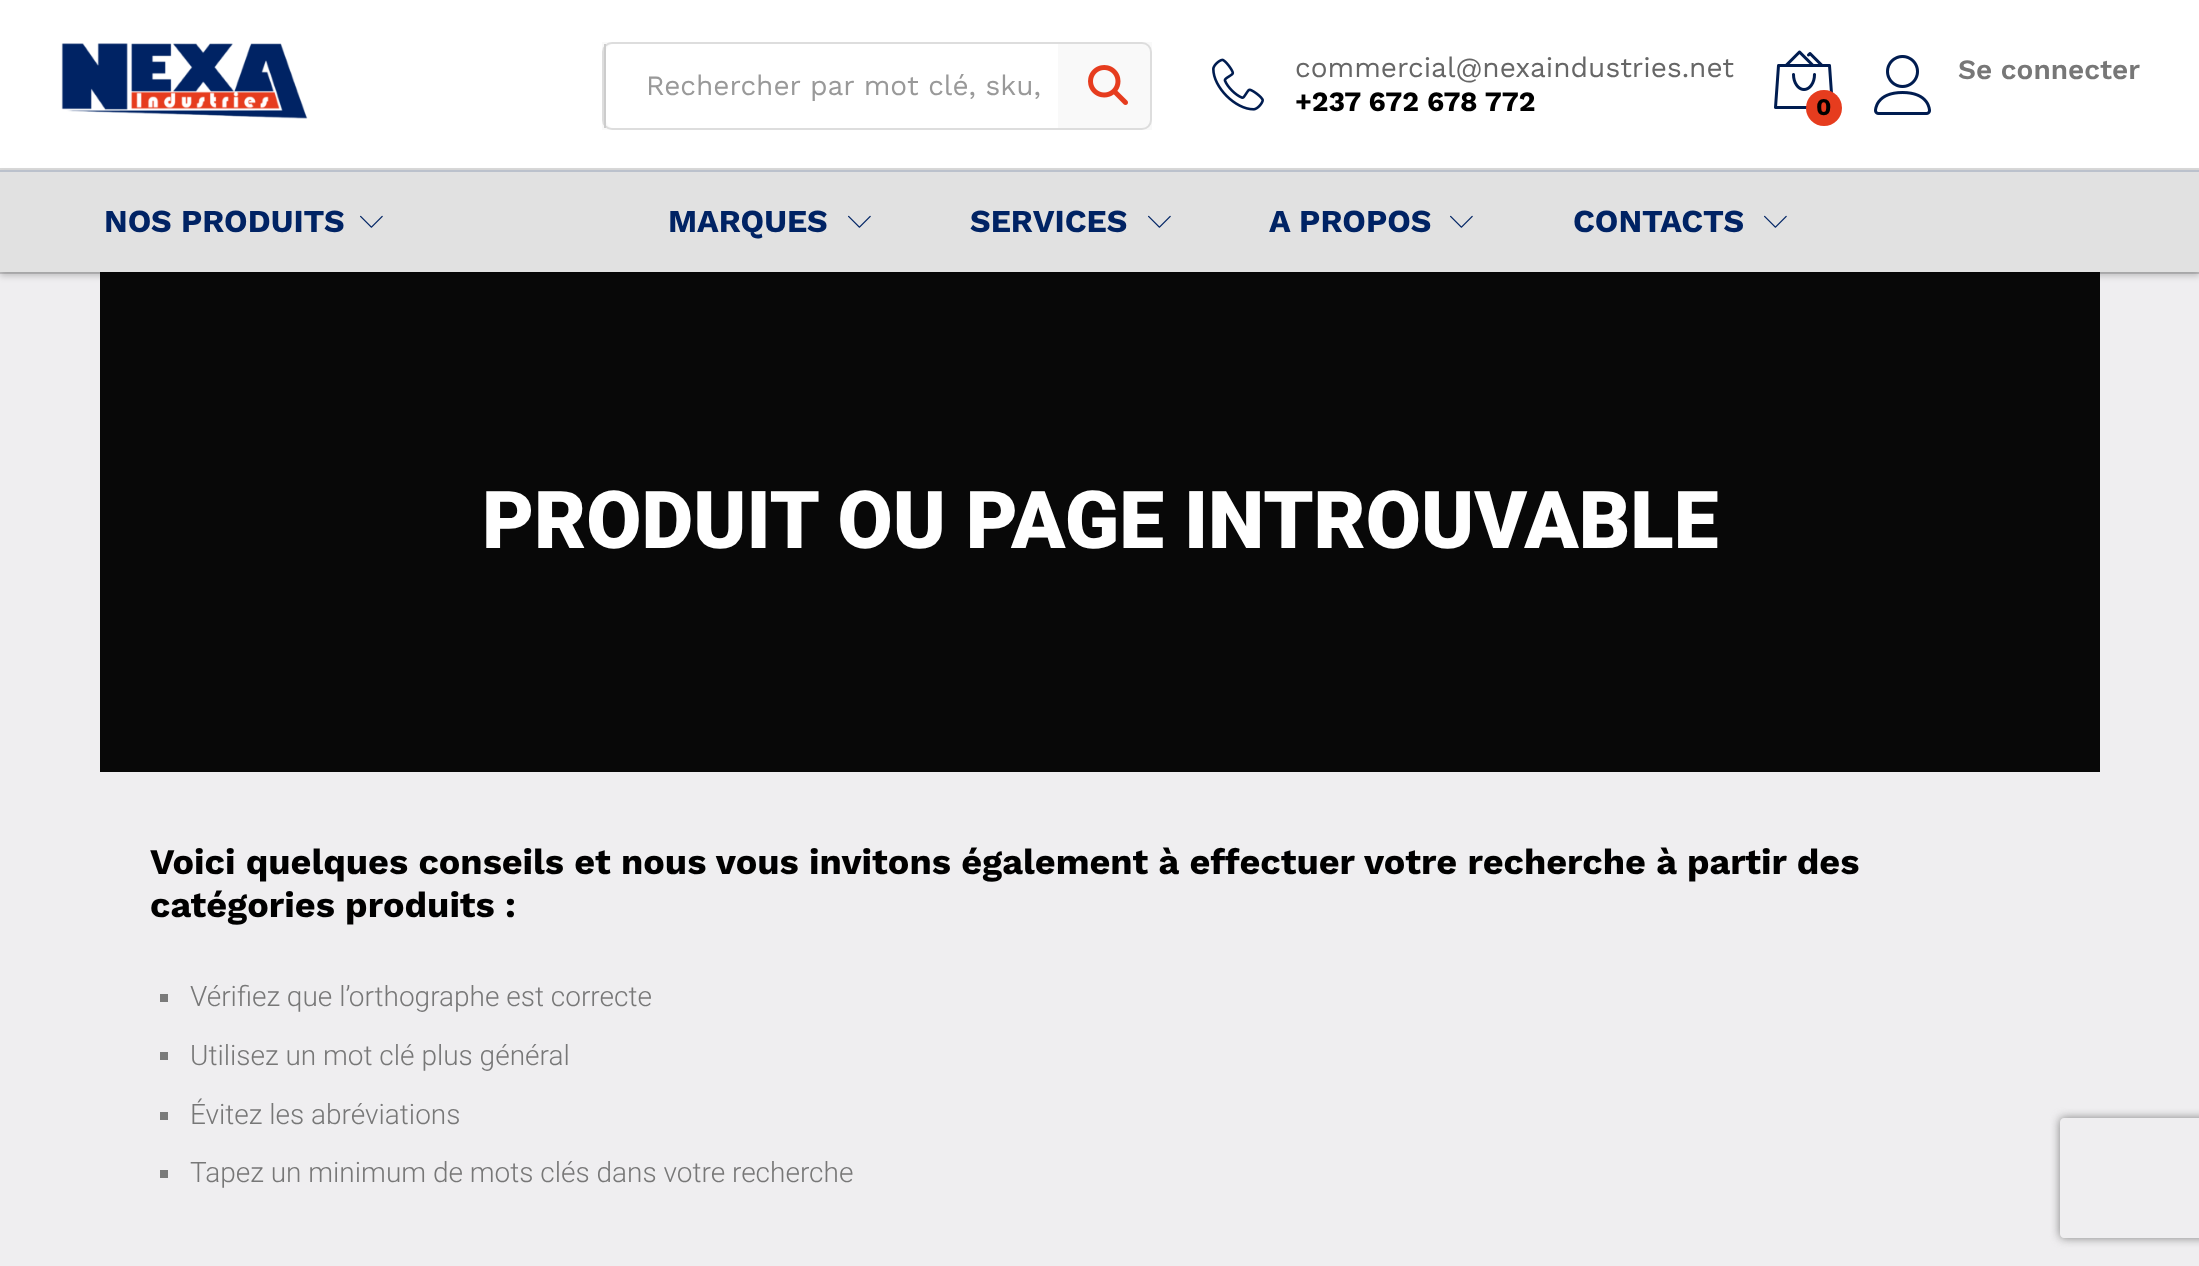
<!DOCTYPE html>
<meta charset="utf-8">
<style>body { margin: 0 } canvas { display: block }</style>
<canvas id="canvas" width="2199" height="1266"></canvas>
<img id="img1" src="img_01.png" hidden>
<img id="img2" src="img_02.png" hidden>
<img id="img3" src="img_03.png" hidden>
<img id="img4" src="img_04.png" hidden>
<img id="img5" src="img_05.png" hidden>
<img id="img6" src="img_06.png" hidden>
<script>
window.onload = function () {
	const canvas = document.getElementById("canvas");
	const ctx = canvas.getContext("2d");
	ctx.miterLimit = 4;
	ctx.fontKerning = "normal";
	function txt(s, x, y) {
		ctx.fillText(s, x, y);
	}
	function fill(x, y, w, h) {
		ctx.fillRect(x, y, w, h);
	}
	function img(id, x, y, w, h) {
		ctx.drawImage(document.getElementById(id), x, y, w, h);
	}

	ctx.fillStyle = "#FFFFFF";
	fill(0, 0, 2199, 1266);
	img("img1", 61, 43, 247, 76);
	ctx.fillStyle = "#F9F9F9";
	fill(602, 42, 550, 88);
	ctx.beginPath();
	ctx.roundRect(603, 43, 548, 86, 9);
	ctx.strokeStyle = "#DDDDDD";
	ctx.lineWidth = 2;
	ctx.stroke();
	ctx.fillStyle = "#CCCCCC";
	fill(604, 44, 2, 84);
	ctx.fillStyle = "#FFFFFF";
	ctx.beginPath();
	ctx.roundRect(606, 44, 452, 84, [8, 0, 0, 8]);
	ctx.fill();
	img("img2", 1088, 65, 40, 40);
	img("img3", 1212, 58, 52, 53);
	img("img4", 1874, 55, 57, 60);
	img("img5", 1774, 50, 59, 59);
	ctx.fillStyle = "#E63C1E";
	ctx.beginPath();
	ctx.arc(1824, 108, 18, 0, Math.PI * 2);
	ctx.fill();
	ctx.fillStyle = "#EFEEF0";
	fill(0, 272, 2199, 994);
	ctx.fillStyle = "rgba(0, 0, 0, 0.2)";
	ctx.filter = "blur(3px)";
	ctx.beginPath();
	ctx.rect(0, 174, 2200, 102);
	ctx.fill();
	ctx.filter = "none";
	ctx.strokeStyle = "rgba(0, 0, 0, 0.15)";
	ctx.strokeRect(-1, 169, 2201, 104);
	ctx.fillStyle = "#E1E1E1";
	fill(0, 172, 2199, 100);
	ctx.fillStyle = "#BBC1CC";
	fill(0, 170, 2199, 2);
	img("img6", 360, 215, 23, 13);
	img("img6", 848, 215, 23, 13);
	img("img6", 1148, 215, 23, 13);
	img("img6", 1450, 215, 23, 13);
	img("img6", 1764, 215, 23, 13);
	ctx.fillStyle = "rgba(0, 0, 0, 0.97)";
	fill(100, 272, 2000, 500);
	ctx.fillStyle = "#7A7A7A";
	fill(160, 994, 8, 8);
	fill(160, 1052, 8, 8);
	fill(160, 1112, 8, 8);
	fill(160, 1170, 8, 8);
	ctx.save();
	ctx.beginPath();
	ctx.moveTo(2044, 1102);
	ctx.lineTo(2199, 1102);
	ctx.lineTo(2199, 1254);
	ctx.lineTo(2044, 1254);
	ctx.closePath();
	ctx.moveTo(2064, 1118);
	ctx.lineTo(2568, 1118);
	ctx.bezierCurveTo(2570, 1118, 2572, 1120, 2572, 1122);
	ctx.lineTo(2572, 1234);
	ctx.bezierCurveTo(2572, 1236, 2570, 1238, 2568, 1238);
	ctx.lineTo(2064, 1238);
	ctx.bezierCurveTo(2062, 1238, 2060, 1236, 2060, 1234);
	ctx.lineTo(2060, 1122);
	ctx.bezierCurveTo(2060, 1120, 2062, 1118, 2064, 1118);
	ctx.closePath();
	ctx.clip("evenodd");
	ctx.fillStyle = "#808080";
	ctx.filter = "blur(5px)";
	ctx.beginPath();
	ctx.roundRect(2060, 1118, 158, 120, 4);
	ctx.fill();
	ctx.filter = "none";
	ctx.restore();
	ctx.font = "28px Work Sans";
	ctx.fillStyle = "#999999";
	txt("Rechercher par mot clé, sku,", 646, 95);
	ctx.fillStyle = "#666666";
	txt("commercial@nexaindustries.net", 1295, 77);
	ctx.font = "bold 28px Work Sans";
	ctx.fillStyle = "#000000";
	txt("+237 672 678 772", 1295, 111);
	ctx.font = "600 28px Work Sans";
	ctx.fillStyle = "#777777";
	txt("Se connecter", 1958, 79);
	ctx.font = "bold 24px Work Sans";
	ctx.fillStyle = "#000000";
	txt("0", 1816, 115);
	ctx.font = "bold 32px Work Sans";
	ctx.fillStyle = "#002364";
	txt("NOS PRODUITS", 104, 232);
	txt("MARQUES", 668, 232);
	txt("SERVICES", 970, 232);
	txt("A PROPOS", 1269, 232);
	txt("CONTACTS", 1573, 232);
	ctx.font = "900 80px Roboto";
	ctx.fillStyle = "#FFFFFF";
	txt("PRODUIT OU PAGE INTROUVABLE", 482, 548);
	ctx.font = "bold 36px Work Sans";
	ctx.fillStyle = "#000000";
	txt("Voici quelques conseils et nous vous invitons également à effectuer votre recherche à partir des", 150, 874);
	txt("catégories produits :", 150, 917);
	ctx.font = "300 28px Roboto";
	ctx.fillStyle = "#777777";
	txt("Vérifiez que l’orthographe est correcte", 190, 1006);
	txt("Utilisez un mot clé plus général", 190, 1065);
	txt("Évitez les abréviations", 190, 1124);
	txt("Tapez un minimum de mots clés dans votre recherche", 190, 1182);
};
</script>
